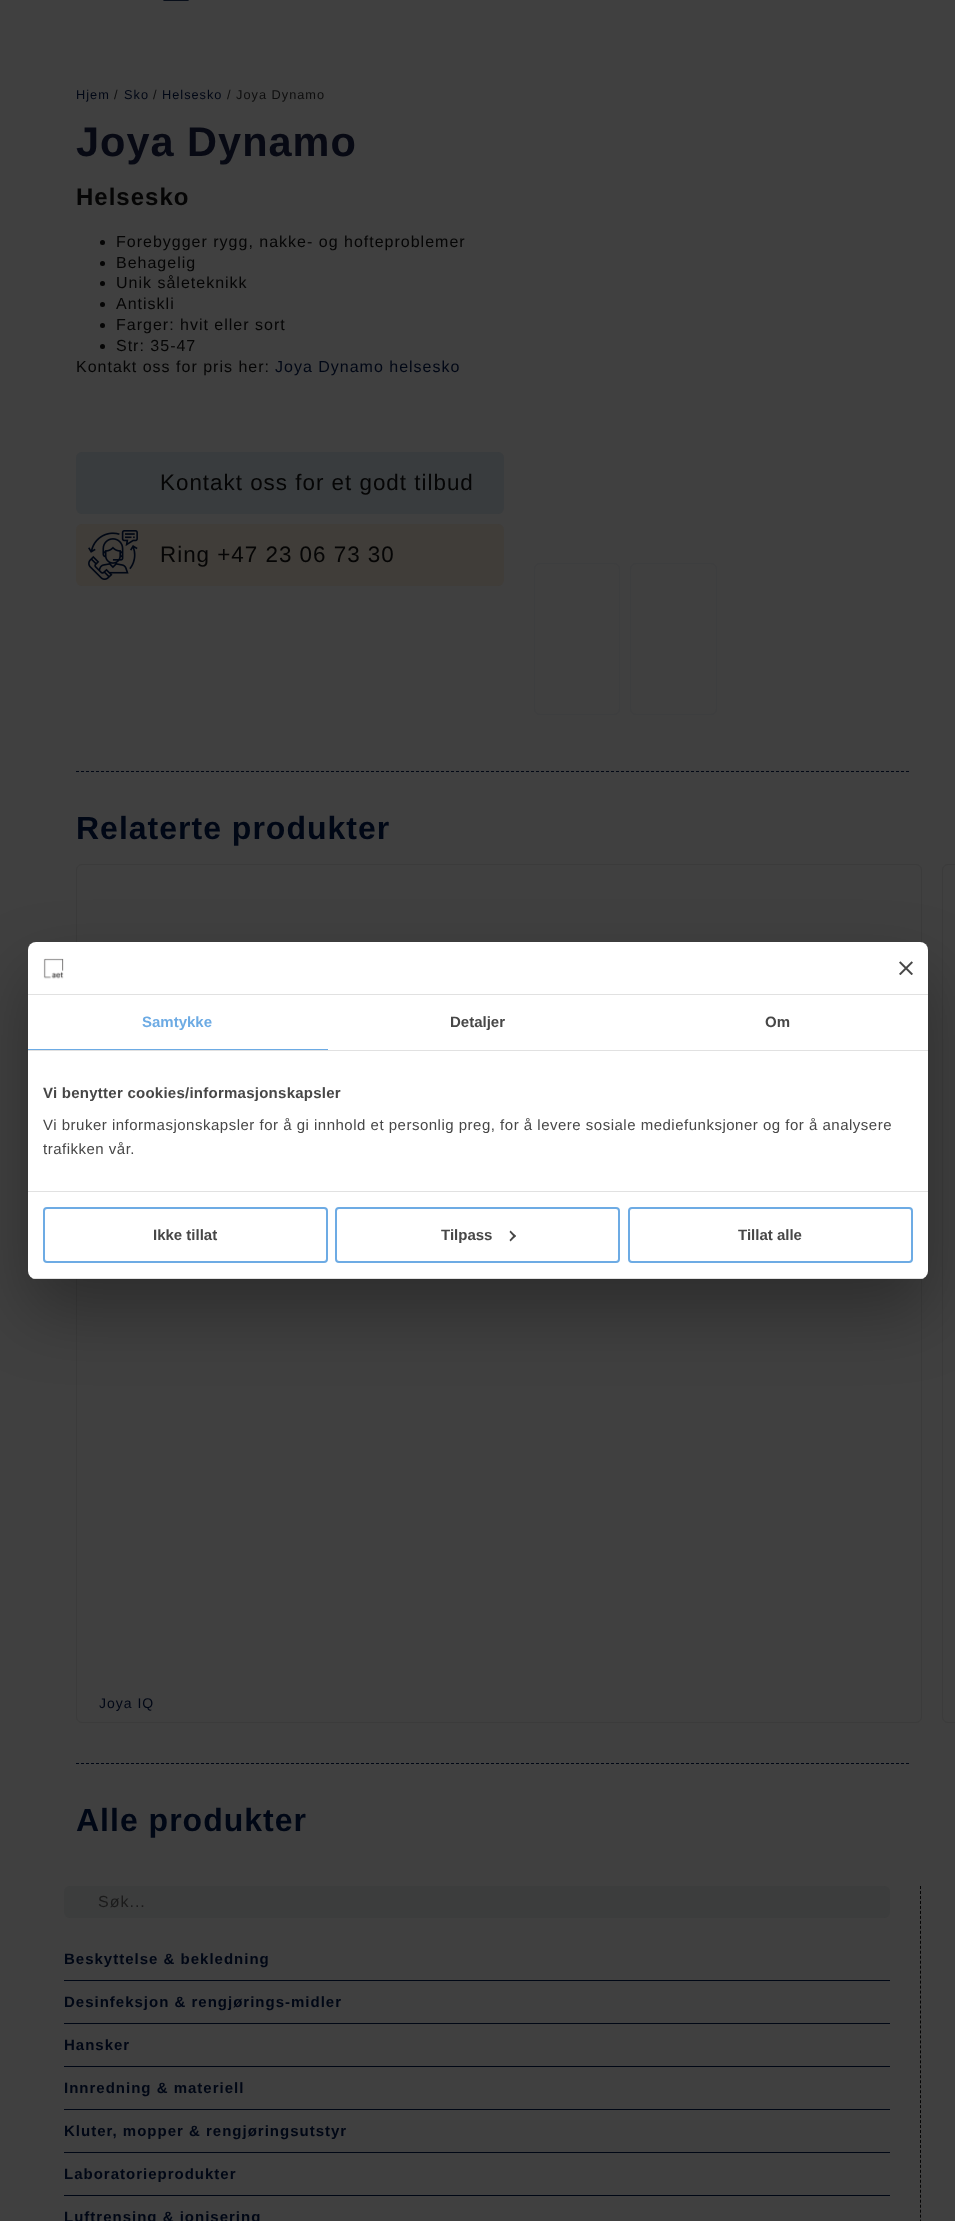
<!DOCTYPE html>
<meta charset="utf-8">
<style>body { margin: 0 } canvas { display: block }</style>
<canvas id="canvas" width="955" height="2221"></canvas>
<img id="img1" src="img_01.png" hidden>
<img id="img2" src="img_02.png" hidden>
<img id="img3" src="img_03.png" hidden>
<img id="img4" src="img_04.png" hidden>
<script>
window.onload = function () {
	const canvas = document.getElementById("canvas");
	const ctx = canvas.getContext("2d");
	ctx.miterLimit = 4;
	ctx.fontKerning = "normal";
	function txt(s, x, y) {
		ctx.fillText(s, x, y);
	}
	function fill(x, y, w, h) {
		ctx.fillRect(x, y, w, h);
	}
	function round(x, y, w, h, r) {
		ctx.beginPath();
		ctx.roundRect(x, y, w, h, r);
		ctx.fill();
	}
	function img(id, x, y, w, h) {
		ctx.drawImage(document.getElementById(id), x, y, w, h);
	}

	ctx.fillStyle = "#404040";
	fill(0, 0, 955, 2221);
	img("img1", 163, 0, 26, 1);
	ctx.fillStyle = "#050505";
	ctx.beginPath();
	ctx.arc(102.5, 242.5, 2.5, 0, Math.PI * 2);
	ctx.fill();
	ctx.beginPath();
	ctx.arc(102.5, 263.5, 2.5, 0, Math.PI * 2);
	ctx.fill();
	ctx.beginPath();
	ctx.arc(102.5, 283.5, 2.5, 0, Math.PI * 2);
	ctx.fill();
	ctx.beginPath();
	ctx.arc(102.5, 304.5, 2.5, 0, Math.PI * 2);
	ctx.fill();
	ctx.beginPath();
	ctx.arc(102.5, 325.5, 2.5, 0, Math.PI * 2);
	ctx.fill();
	ctx.beginPath();
	ctx.arc(102.5, 346.5, 2.5, 0, Math.PI * 2);
	ctx.fill();
	ctx.fillStyle = "#393C3E";
	round(76, 452, 428, 62, 6);
	ctx.fillStyle = "#403D39";
	round(76, 524, 428, 62, 6);
	img("img2", 88, 530, 50, 50);
	ctx.beginPath();
	ctx.roundRect(534.5, 563.5, 85, 151, 5.5);
	ctx.strokeStyle = "#3D3E3F";
	ctx.stroke();
	ctx.beginPath();
	ctx.roundRect(630.5, 563.5, 86, 151, 5.5);
	ctx.stroke();
	ctx.beginPath();
	ctx.moveTo(76, 771.5);
	ctx.lineTo(909, 771.5);
	ctx.strokeStyle = "#000715";
	ctx.setLineDash([3, 2]);
	ctx.stroke();
	ctx.beginPath();
	ctx.roundRect(76.5, 864.5, 845, 858, 5.5);
	ctx.strokeStyle = "#3B3B3B";
	ctx.setLineDash([]);
	ctx.stroke();
	ctx.beginPath();
	ctx.roundRect(942.5, 864.5, 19, 858, 5.5);
	ctx.stroke();
	ctx.beginPath();
	ctx.moveTo(76, 1763.5);
	ctx.lineTo(909, 1763.5);
	ctx.strokeStyle = "#000715";
	ctx.setLineDash([3, 2]);
	ctx.stroke();
	ctx.beginPath();
	ctx.moveTo(920.5, 1886);
	ctx.lineTo(920.5, 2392);
	ctx.strokeStyle = "#050505";
	ctx.setLineDash([3, 1.98]);
	ctx.stroke();
	ctx.fillStyle = "#3C3D3D";
	round(64, 1886, 826, 32, 6);
	ctx.fillStyle = "#000715";
	fill(64, 1980, 826, 1);
	fill(64, 2023, 826, 1);
	fill(64, 2066, 826, 1);
	fill(64, 2109, 826, 1);
	fill(64, 2152, 826, 1);
	fill(64, 2195, 826, 1);
	ctx.fillStyle = "rgba(0, 0, 0, 0.3)";
	ctx.filter = "blur(34px)";
	ctx.beginPath();
	ctx.roundRect(28, 974, 900, 337, 8);
	ctx.fill();
	ctx.filter = "none";
	ctx.fillStyle = "#FFFFFF";
	round(28, 942, 900, 337, 8);
	ctx.fillStyle = "#E1E1E1";
	fill(28, 994, 900, 1);
	img("img3", 43, 958, 21, 21);
	img("img4", 899, 961, 14, 14);
	fill(28, 1050, 900, 1);
	ctx.fillStyle = "#6DABE4";
	fill(28, 1049, 300, 1);
	ctx.fillStyle = "#E1E1E1";
	fill(28, 1191, 900, 1);
	ctx.save();
	ctx.beginPath();
	ctx.roundRect(28, 942, 900, 337, 8);
	ctx.clip();
	fill(28, 1278, 900, 1);
	ctx.restore();
	ctx.beginPath();
	ctx.roundRect(44, 1208, 283, 54, 3);
	ctx.strokeStyle = "#6DABE4";
	ctx.lineWidth = 2;
	ctx.setLineDash([]);
	ctx.stroke();
	ctx.beginPath();
	ctx.roundRect(336, 1208, 283, 54, 3);
	ctx.stroke();
	ctx.fillStyle = "#474747";
	ctx.beginPath();
	ctx.moveTo(510.5, 1230.5);
	ctx.lineTo(516, 1236);
	ctx.lineTo(514.5, 1237.5);
	ctx.lineTo(509.5, 1232);
	ctx.closePath();
	ctx.fill();
	ctx.beginPath();
	ctx.moveTo(514.5, 1234.5);
	ctx.lineTo(516, 1236);
	ctx.lineTo(510.5, 1241.5);
	ctx.lineTo(509.5, 1240);
	ctx.closePath();
	ctx.fill();
	ctx.beginPath();
	ctx.roundRect(629, 1208, 283, 54, 3);
	ctx.stroke();
	ctx.letterSpacing = "1px";
	ctx.font = "12.75px Liberation Sans";
	ctx.fillStyle = "#000715";
	txt("Hjem", 76, 99);
	ctx.fillStyle = "#0D0D0D";
	txt("/", 114, 99);
	ctx.fillStyle = "#000715";
	txt("Sko", 124, 99);
	ctx.fillStyle = "#0D0D0D";
	txt("/", 153, 99);
	ctx.fillStyle = "#000715";
	txt("Helsesko", 162, 99);
	ctx.fillStyle = "#0D0D0D";
	txt("/ Joya Dynamo", 227, 99);
	ctx.font = "bold 41.5px Liberation Sans";
	ctx.fillStyle = "#070913";
	txt("Joya Dynamo", 76, 156);
	ctx.font = "bold 24px Liberation Sans";
	ctx.fillStyle = "#050505";
	txt("Helsesko", 76, 205);
	ctx.font = "16px Liberation Sans";
	txt("Forebygger rygg, nakke- og hofteproblemer", 116, 247);
	txt("Behagelig", 116, 268);
	txt("Unik såleteknikk", 116, 288);
	txt("Antiskli", 116, 309);
	txt("Farger: hvit eller sort", 116, 330);
	txt("Str: 35-47", 116, 351);
	txt("Kontakt oss for pris her:", 76, 372);
	ctx.fillStyle = "#000715";
	txt("Joya Dynamo helsesko", 275, 372);
	ctx.font = "22.4px Liberation Sans";
	ctx.fillStyle = "#050505";
	txt("Kontakt oss for et godt tilbud", 160, 490);
	txt("Ring +47 23 06 73 30", 160, 562);
	ctx.font = "bold 32px Liberation Sans";
	ctx.fillStyle = "#000715";
	txt("Relaterte produkter", 76, 839);
	ctx.font = "14px Liberation Sans";
	txt("Joya IQ", 99, 1708);
	ctx.font = "bold 32px Liberation Sans";
	txt("Alle produkter", 76, 1831);
	ctx.font = "16px Liberation Sans";
	ctx.fillStyle = "#1B1B1B";
	txt("Søk...", 98, 1907);
	ctx.font = "bold 15px Liberation Sans";
	ctx.fillStyle = "#000715";
	txt("Beskyttelse & bekledning", 64, 1964);
	txt("Desinfeksjon & rengjørings-midler", 64, 2007);
	txt("Hansker", 64, 2050);
	txt("Innredning & materiell", 64, 2093);
	txt("Kluter, mopper & rengjøringsutstyr", 64, 2136);
	txt("Laboratorieprodukter", 64, 2179);
	txt("Luftrensing & ionisering", 64, 2222);
	ctx.letterSpacing = "0px";
	ctx.fillStyle = "#6DABE4";
	txt("Samtykke", 142, 1027);
	ctx.fillStyle = "#474747";
	txt("Detaljer", 450, 1027);
	txt("Om", 765, 1027);
	ctx.letterSpacing = "0.25px";
	txt("Vi benytter cookies/informasjonskapsler", 43, 1098);
	ctx.letterSpacing = "0.5px";
	ctx.font = "15px Liberation Sans";
	txt("Vi bruker informasjonskapsler for å gi innhold et personlig preg, for å levere sosiale mediefunksjoner og for å analysere", 43, 1130);
	txt("trafikken vår.", 43, 1154);
	ctx.letterSpacing = "0px";
	ctx.font = "bold 15px Liberation Sans";
	txt("Ikke tillat", 153, 1240);
	txt("Tilpass", 441, 1240);
	txt("Tillat alle", 738, 1240);
};
</script>
